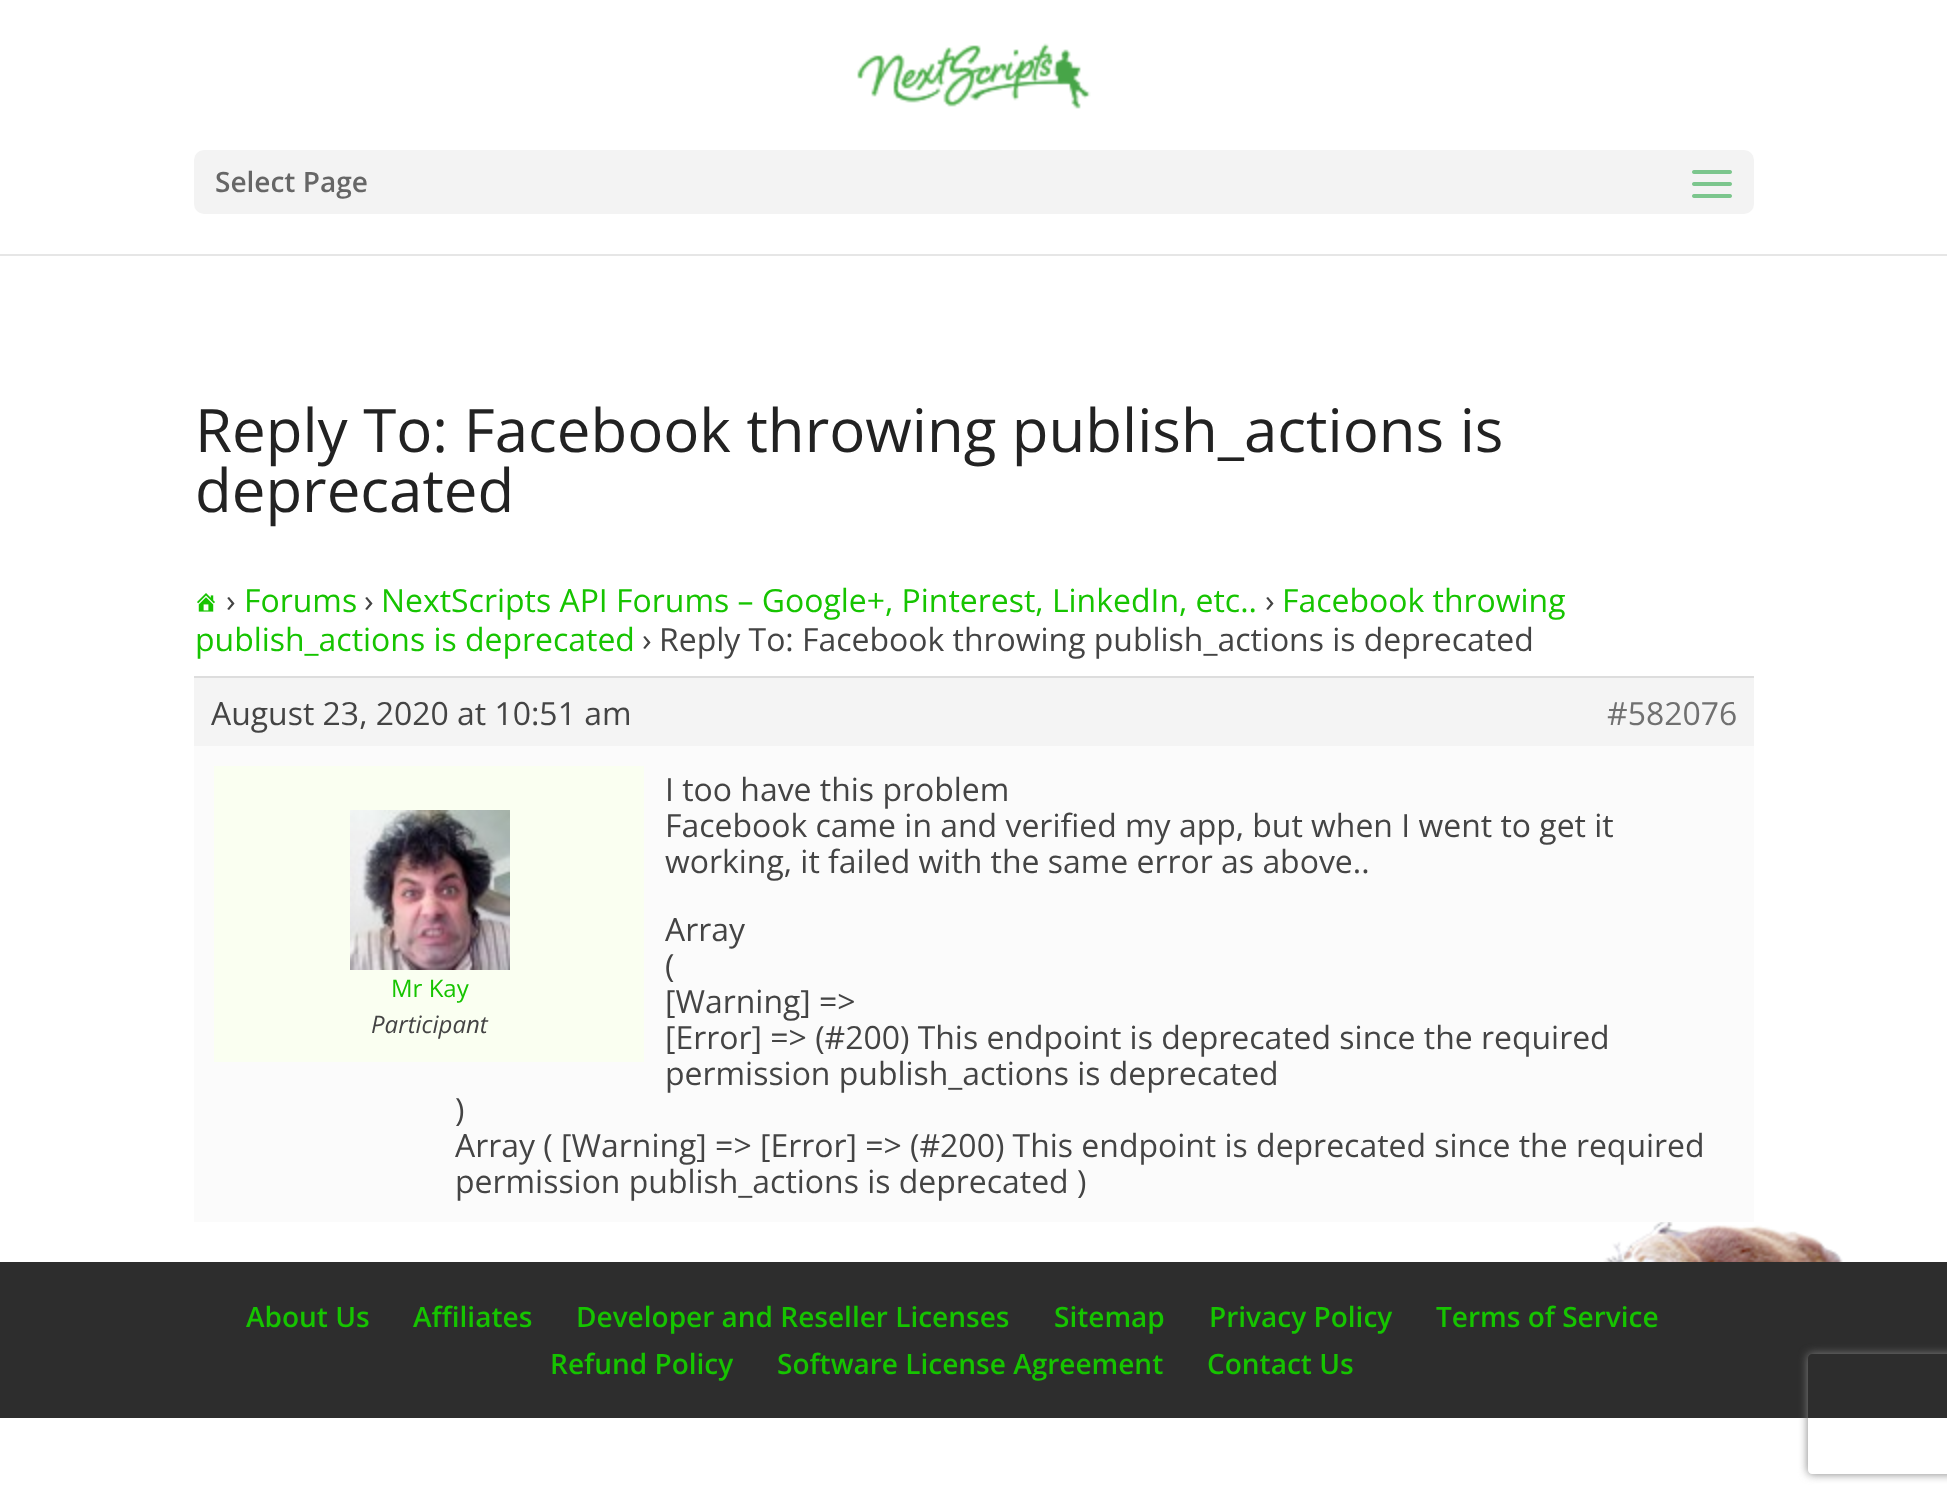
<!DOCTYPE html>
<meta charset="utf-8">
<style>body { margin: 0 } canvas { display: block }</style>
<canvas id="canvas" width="1947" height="1501"></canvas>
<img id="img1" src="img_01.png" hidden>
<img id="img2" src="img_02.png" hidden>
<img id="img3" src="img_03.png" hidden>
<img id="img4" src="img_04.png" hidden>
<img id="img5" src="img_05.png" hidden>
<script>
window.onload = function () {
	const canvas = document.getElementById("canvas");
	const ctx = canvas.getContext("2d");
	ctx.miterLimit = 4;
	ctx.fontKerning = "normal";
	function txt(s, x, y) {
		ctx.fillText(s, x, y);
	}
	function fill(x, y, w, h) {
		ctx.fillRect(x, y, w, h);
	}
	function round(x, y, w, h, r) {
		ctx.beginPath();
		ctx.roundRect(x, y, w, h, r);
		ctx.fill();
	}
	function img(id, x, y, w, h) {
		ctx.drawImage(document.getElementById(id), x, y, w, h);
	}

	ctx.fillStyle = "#FFFFFF";
	fill(0, 0, 1947, 1501);
	img("img1", 1603, 1222, 240, 40);
	ctx.fillStyle = "#E6E6E6";
	fill(0, 254, 1947, 2);
	img("img2", 857, 43, 234, 66);
	ctx.fillStyle = "#F3F3F3";
	round(194, 150, 1560, 64, 10);
	img("img3", 1692, 170, 40, 28);
	img("img4", 197, 593, 18, 19);
	ctx.fillStyle = "#F4F4F4";
	fill(194, 678, 1560, 68);
	ctx.fillStyle = "#DDDDDD";
	fill(194, 676, 1560, 2);
	ctx.fillStyle = "#FBFBFB";
	fill(194, 746, 1560, 476);
	ctx.fillStyle = "#FAFFF1";
	fill(214, 766, 430, 296);
	img("img5", 350, 810, 160, 160);
	ctx.fillStyle = "#2D2D2D";
	fill(0, 1262, 1947, 156);
	ctx.save();
	ctx.beginPath();
	ctx.moveTo(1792, 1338);
	ctx.lineTo(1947, 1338);
	ctx.lineTo(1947, 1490);
	ctx.lineTo(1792, 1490);
	ctx.closePath();
	ctx.moveTo(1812, 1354);
	ctx.lineTo(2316, 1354);
	ctx.bezierCurveTo(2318, 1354, 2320, 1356, 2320, 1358);
	ctx.lineTo(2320, 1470);
	ctx.bezierCurveTo(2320, 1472, 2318, 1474, 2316, 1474);
	ctx.lineTo(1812, 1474);
	ctx.bezierCurveTo(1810, 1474, 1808, 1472, 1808, 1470);
	ctx.lineTo(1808, 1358);
	ctx.bezierCurveTo(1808, 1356, 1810, 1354, 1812, 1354);
	ctx.closePath();
	ctx.clip("evenodd");
	ctx.fillStyle = "#808080";
	ctx.filter = "blur(5px)";
	ctx.beginPath();
	ctx.roundRect(1808, 1354, 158, 120, 4);
	ctx.fill();
	ctx.filter = "none";
	ctx.restore();
	ctx.font = "600 28px Open Sans";
	ctx.fillStyle = "#666666";
	txt("Select Page", 215, 192);
	ctx.font = "60px Open Sans";
	ctx.fillStyle = "#222222";
	txt("Reply To: Facebook throwing publish_actions is", 195, 452);
	txt("deprecated", 195, 512);
	ctx.font = "31.95px Open Sans";
	ctx.fillStyle = "#444444";
	txt("›", 226, 612);
	ctx.fillStyle = "#16C400";
	txt("Forums", 244, 612);
	ctx.fillStyle = "#444444";
	txt("›", 364, 612);
	ctx.fillStyle = "#16C400";
	txt("NextScripts API Forums – Google+, Pinterest, LinkedIn, etc..", 381, 612);
	ctx.fillStyle = "#444444";
	txt("›", 1265, 612);
	ctx.fillStyle = "#16C400";
	txt("Facebook throwing", 1282, 612);
	txt("publish_actions is deprecated", 195, 651);
	ctx.fillStyle = "#444444";
	txt("›", 642, 651);
	txt("Reply To: Facebook throwing publish_actions is deprecated", 659, 651);
	txt("August 23, 2020 at 10:51 am", 211, 725);
	ctx.fillStyle = "#707070";
	txt("#582076", 1607, 725);
	ctx.font = "24px Open Sans";
	ctx.fillStyle = "#16C400";
	txt("Mr Kay", 391, 997);
	ctx.font = "italic 24px Open Sans";
	ctx.fillStyle = "#444444";
	txt("Participant", 371, 1033);
	ctx.font = "31.95px Open Sans";
	txt("I too have this problem", 665, 801);
	txt("Facebook came in and verified my app, but when I went to get it", 665, 837);
	txt("working, it failed with the same error as above..", 665, 873);
	txt("Array", 665, 941);
	txt("(", 665, 977);
	txt("[Warning] =>", 665, 1013);
	txt("[Error] => (#200) This endpoint is deprecated since the required", 665, 1049);
	txt("permission publish_actions is deprecated", 665, 1085);
	txt(")", 455, 1121);
	txt("Array ( [Warning] => [Error] => (#200) This endpoint is deprecated since the required", 455, 1157);
	txt("permission publish_actions is deprecated )", 455, 1193);
	ctx.font = "600 28px Open Sans";
	ctx.fillStyle = "#16C400";
	txt("About Us", 246, 1327);
	txt("Affiliates", 413, 1327);
	txt("Developer and Reseller Licenses", 576, 1327);
	txt("Sitemap", 1054, 1327);
	txt("Privacy Policy", 1209, 1327);
	txt("Terms of Service", 1436, 1327);
	txt("Refund Policy", 550, 1374);
	txt("Software License Agreement", 777, 1374);
	txt("Contact Us", 1207, 1374);
};
</script>
